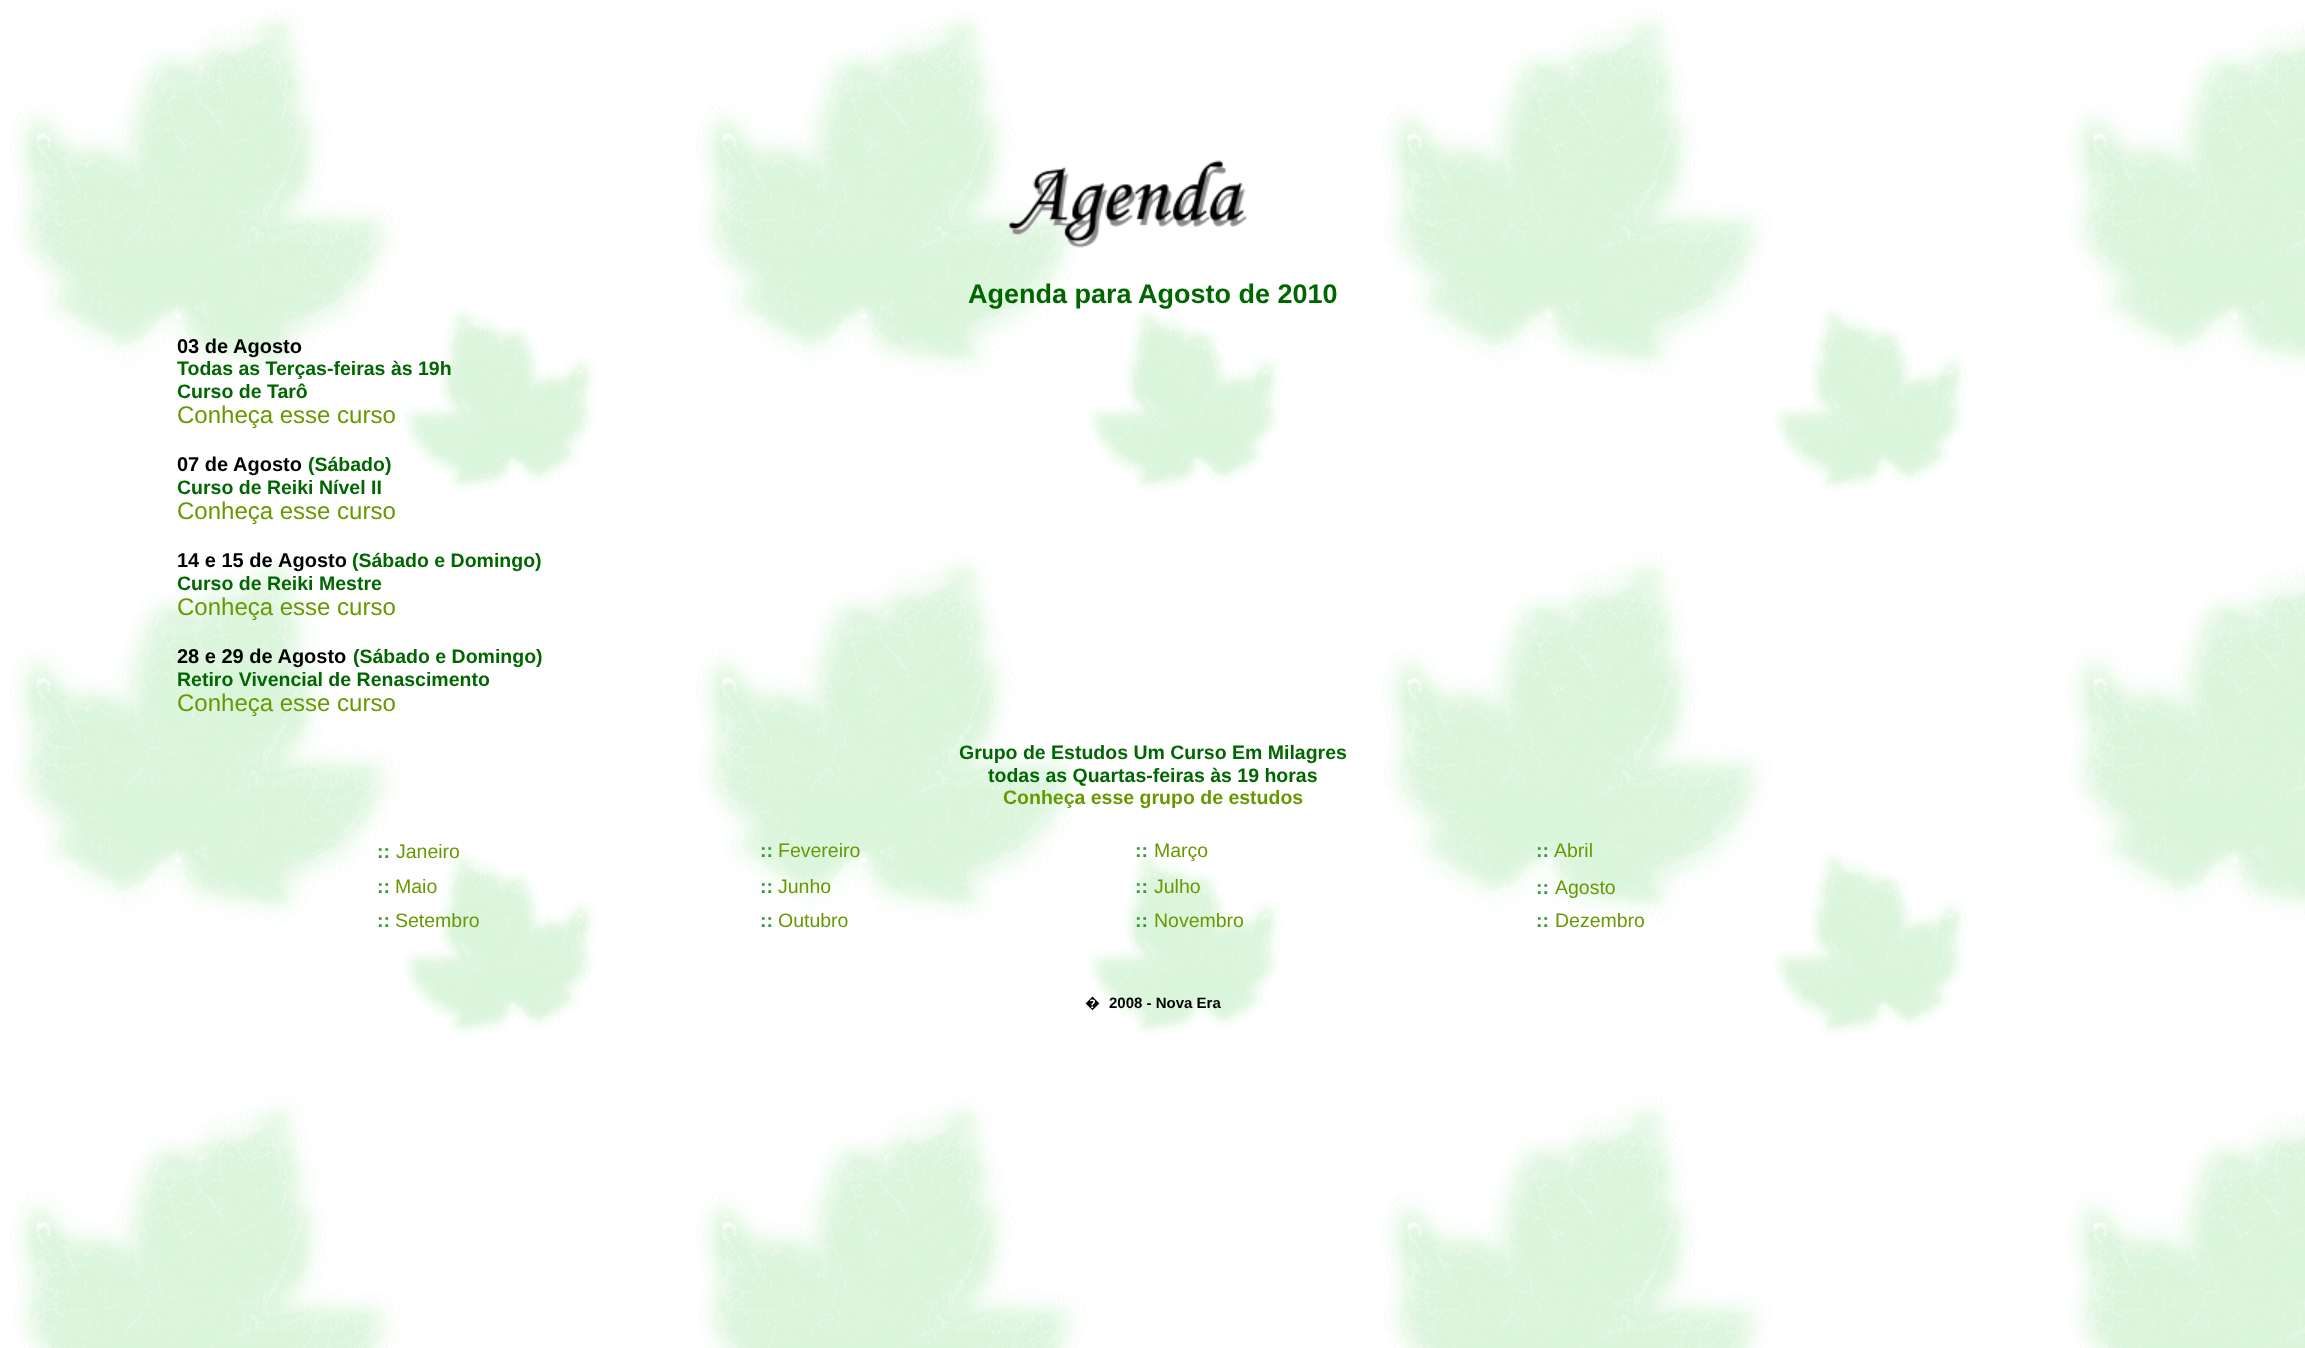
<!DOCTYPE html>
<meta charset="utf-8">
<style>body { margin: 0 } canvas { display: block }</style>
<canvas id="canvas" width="2305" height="1348"></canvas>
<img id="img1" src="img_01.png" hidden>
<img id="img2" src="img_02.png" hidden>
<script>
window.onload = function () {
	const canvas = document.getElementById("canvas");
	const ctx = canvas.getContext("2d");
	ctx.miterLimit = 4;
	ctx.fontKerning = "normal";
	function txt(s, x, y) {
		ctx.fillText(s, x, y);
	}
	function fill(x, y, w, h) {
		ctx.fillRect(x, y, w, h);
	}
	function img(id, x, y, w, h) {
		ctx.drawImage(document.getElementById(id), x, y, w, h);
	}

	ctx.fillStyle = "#FFFFFF";
	fill(0, 0, 2305, 1348);
	img("img1", 10, 5, 2295, 1343);
	img("img2", 1009, 160, 238, 88);
	ctx.font = "bold 27px Liberation Sans";
	ctx.fillStyle = "#006600";
	txt("Agenda para Agosto de 2010", 968, 303);
	ctx.font = "bold 20px Liberation Sans";
	ctx.fillStyle = "#000000";
	txt("03 de", 177, 353);
	txt("Agosto", 233, 353);
	ctx.font = "bold 19.5px Liberation Sans";
	ctx.fillStyle = "#006600";
	txt("Todas as Terças-feiras às 19h", 177, 375);
	txt("Curso de Tarô", 177, 398);
	ctx.font = "24px Liberation Sans";
	ctx.fillStyle = "#669900";
	txt("Conheça esse curso", 177, 423);
	ctx.font = "bold 20px Liberation Sans";
	ctx.fillStyle = "#000000";
	txt("07 de", 177, 471);
	txt("Agosto", 233, 471);
	ctx.font = "bold 19.5px Liberation Sans";
	ctx.fillStyle = "#006600";
	txt("(Sábado)", 308, 471);
	txt("Curso de Reiki Nível II", 177, 494);
	ctx.font = "24px Liberation Sans";
	ctx.fillStyle = "#669900";
	txt("Conheça esse curso", 177, 519);
	ctx.font = "bold 20px Liberation Sans";
	ctx.fillStyle = "#000000";
	txt("14 e 15 de", 177, 567);
	txt("Agosto", 278, 567);
	ctx.font = "bold 19.5px Liberation Sans";
	ctx.fillStyle = "#006600";
	txt("(Sábado e Domingo)", 352, 567);
	txt("Curso de Reiki Mestre", 177, 590);
	ctx.font = "24px Liberation Sans";
	ctx.fillStyle = "#669900";
	txt("Conheça esse curso", 177, 615);
	ctx.font = "bold 20px Liberation Sans";
	ctx.fillStyle = "#000000";
	txt("28 e 29 de Agosto", 177, 663);
	ctx.font = "bold 19.5px Liberation Sans";
	ctx.fillStyle = "#006600";
	txt("(Sábado e Domingo)", 353, 663);
	txt("Retiro Vivencial de Renascimento", 177, 686);
	ctx.font = "24px Liberation Sans";
	ctx.fillStyle = "#669900";
	txt("Conheça esse curso", 177, 711);
	ctx.font = "bold 19.5px Liberation Sans";
	ctx.fillStyle = "#006600";
	txt("Grupo de Estudos Um Curso Em Milagres", 959, 759);
	txt("todas as Quartas-feiras às 19 horas", 988, 782);
	ctx.fillStyle = "#669900";
	txt("Conheça esse grupo de estudos", 1003, 804);
	ctx.fillStyle = "#339933";
	txt("::", 377, 858);
	ctx.font = "19.5px Liberation Sans";
	ctx.fillStyle = "#669900";
	txt("Janeiro", 396, 858);
	ctx.font = "bold 19.5px Liberation Sans";
	ctx.fillStyle = "#339933";
	txt("::", 760, 857);
	ctx.font = "19.5px Liberation Sans";
	ctx.fillStyle = "#669900";
	txt("Fevereiro", 778, 857);
	ctx.font = "bold 19.5px Liberation Sans";
	ctx.fillStyle = "#339933";
	txt("::", 1135, 857);
	ctx.font = "19.5px Liberation Sans";
	ctx.fillStyle = "#669900";
	txt("Março", 1154, 857);
	ctx.font = "bold 19.5px Liberation Sans";
	ctx.fillStyle = "#339933";
	txt("::", 1536, 857);
	ctx.font = "19.5px Liberation Sans";
	ctx.fillStyle = "#669900";
	txt("Abril", 1554, 857);
	ctx.font = "bold 19.5px Liberation Sans";
	ctx.fillStyle = "#339933";
	txt("::", 377, 893);
	ctx.font = "19.5px Liberation Sans";
	ctx.fillStyle = "#669900";
	txt("Maio", 395, 893);
	ctx.font = "bold 19.5px Liberation Sans";
	ctx.fillStyle = "#339933";
	txt("::", 760, 893);
	ctx.font = "19.5px Liberation Sans";
	ctx.fillStyle = "#669900";
	txt("Junho", 778, 893);
	ctx.font = "bold 19.5px Liberation Sans";
	ctx.fillStyle = "#339933";
	txt("::", 1135, 893);
	ctx.font = "19.5px Liberation Sans";
	ctx.fillStyle = "#669900";
	txt("Julho", 1154, 893);
	ctx.font = "bold 19.5px Liberation Sans";
	ctx.fillStyle = "#339933";
	txt("::", 1536, 894);
	ctx.font = "19.5px Liberation Sans";
	ctx.fillStyle = "#669900";
	txt("Agosto", 1555, 894);
	ctx.font = "bold 19.5px Liberation Sans";
	ctx.fillStyle = "#339933";
	txt("::", 377, 927);
	ctx.font = "19.5px Liberation Sans";
	ctx.fillStyle = "#669900";
	txt("Setembro", 395, 927);
	ctx.font = "bold 19.5px Liberation Sans";
	ctx.fillStyle = "#339933";
	txt("::", 760, 927);
	ctx.font = "19.5px Liberation Sans";
	ctx.fillStyle = "#669900";
	txt("Outubro", 778, 927);
	ctx.font = "bold 19.5px Liberation Sans";
	ctx.fillStyle = "#339933";
	txt("::", 1135, 927);
	ctx.font = "19.5px Liberation Sans";
	ctx.fillStyle = "#669900";
	txt("Novembro", 1154, 927);
	ctx.font = "bold 19.5px Liberation Sans";
	ctx.fillStyle = "#339933";
	txt("::", 1536, 927);
	ctx.font = "19.5px Liberation Sans";
	ctx.fillStyle = "#669900";
	txt("Dezembro", 1555, 927);
	ctx.font = "bold 15px Noto Sans";
	ctx.fillStyle = "#000000";
	txt("�", 1085, 1008);
	ctx.font = "bold 15px Liberation Sans";
	txt("2008 - Nova Era", 1109, 1008);
};
</script>
